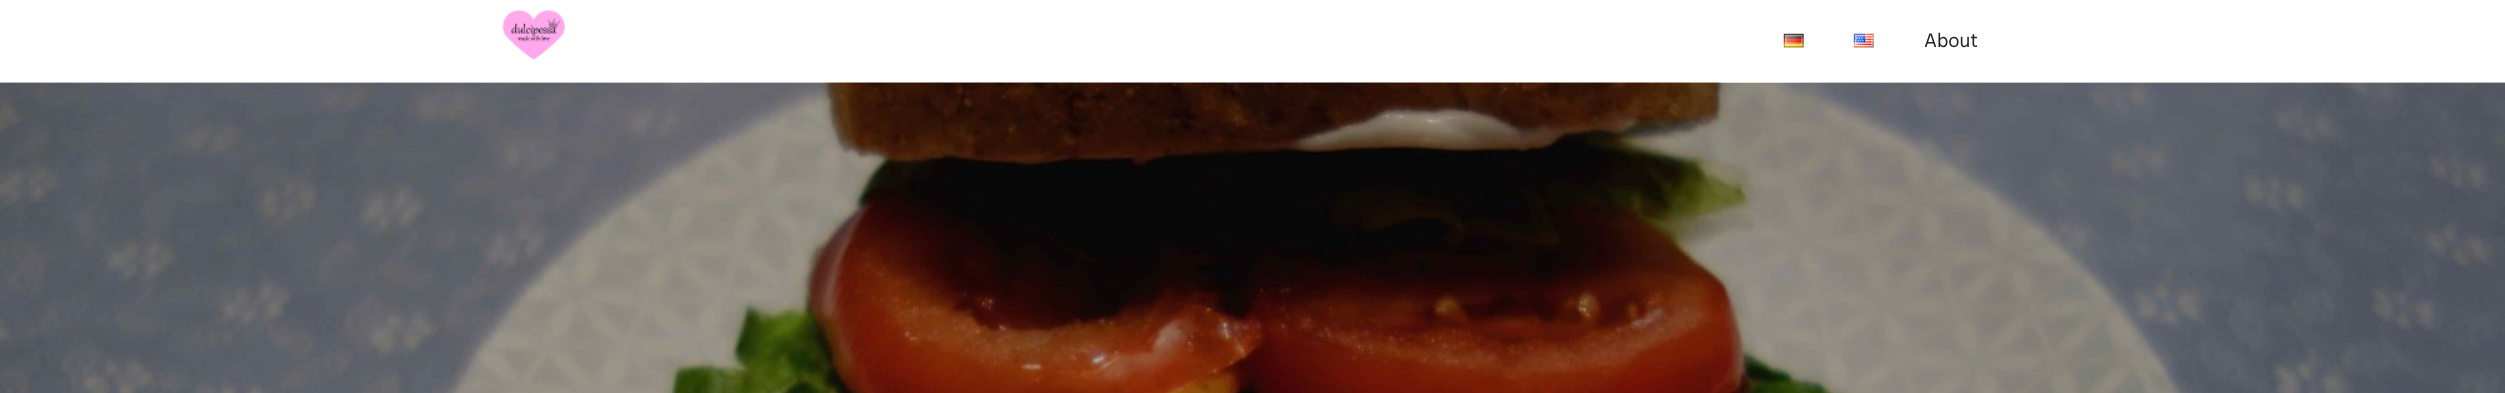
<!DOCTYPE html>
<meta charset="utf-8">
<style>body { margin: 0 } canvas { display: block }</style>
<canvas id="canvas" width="2505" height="393"></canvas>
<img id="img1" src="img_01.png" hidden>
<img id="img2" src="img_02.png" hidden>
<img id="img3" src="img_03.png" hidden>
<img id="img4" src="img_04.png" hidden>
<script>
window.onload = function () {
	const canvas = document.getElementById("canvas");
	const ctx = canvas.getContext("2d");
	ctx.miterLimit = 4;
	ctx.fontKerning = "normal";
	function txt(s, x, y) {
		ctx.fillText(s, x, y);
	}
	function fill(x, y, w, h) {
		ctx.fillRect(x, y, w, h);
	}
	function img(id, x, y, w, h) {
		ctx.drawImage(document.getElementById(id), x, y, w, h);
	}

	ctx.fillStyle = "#FFFFFF";
	fill(0, 0, 2505, 393);
	img("img1", 502, 10, 63, 51);
	img("img2", 1783, 33, 21, 15);
	img("img3", 1853, 33, 21, 15);
	img("img4", 0, 82, 2505, 311);
	ctx.font = "20px Hind";
	ctx.fillStyle = "#242424";
	txt("About", 1924, 47);
};
</script>
